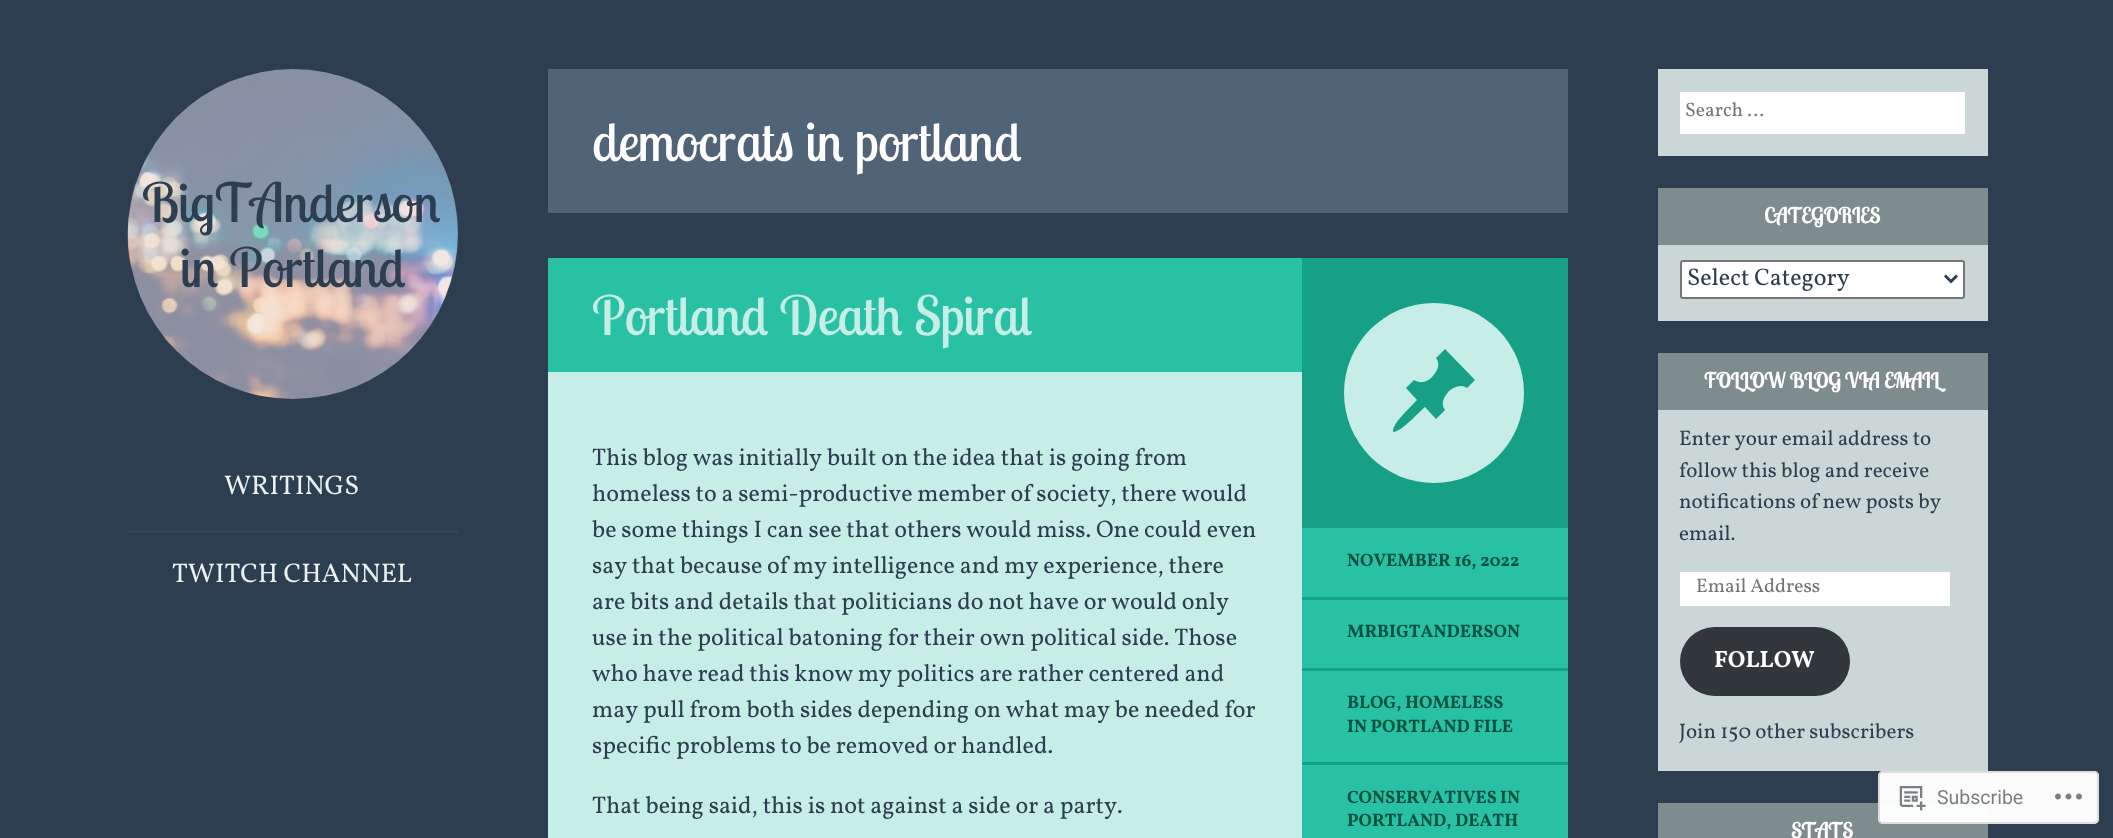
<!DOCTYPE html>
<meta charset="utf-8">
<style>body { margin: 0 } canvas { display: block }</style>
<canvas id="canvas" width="2113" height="838"></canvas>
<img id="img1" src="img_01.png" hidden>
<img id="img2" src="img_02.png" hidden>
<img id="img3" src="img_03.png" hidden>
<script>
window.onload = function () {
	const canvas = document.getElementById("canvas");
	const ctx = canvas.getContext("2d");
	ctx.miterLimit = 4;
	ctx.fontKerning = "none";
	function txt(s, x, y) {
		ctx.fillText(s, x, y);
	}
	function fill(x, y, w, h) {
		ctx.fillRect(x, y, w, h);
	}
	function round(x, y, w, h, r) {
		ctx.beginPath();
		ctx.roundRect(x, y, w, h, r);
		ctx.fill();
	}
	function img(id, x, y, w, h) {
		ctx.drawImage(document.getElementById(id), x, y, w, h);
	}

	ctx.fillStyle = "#2C3E50";
	fill(0, 0, 2113, 838);
	img("img1", 127, 69, 331, 330);
	ctx.fillStyle = "rgba(236, 240, 241, 0.5)";
	ctx.beginPath();
	ctx.arc(293, 234, 165, 0, Math.PI * 2);
	ctx.fill();
	ctx.fillStyle = "#31465A";
	fill(128, 530, 330, 3);
	ctx.fillStyle = "#516477";
	fill(548, 69, 1020, 144);
	ctx.fillStyle = "#C7EEE6";
	fill(548, 372, 754, 466);
	ctx.fillStyle = "#28C1A3";
	fill(548, 258, 754, 114);
	ctx.fillStyle = "#16A085";
	fill(1302, 258, 266, 507);
	ctx.fillStyle = "#C7EEE6";
	ctx.beginPath();
	ctx.arc(1434, 393, 90, 0, Math.PI * 2);
	ctx.fill();
	ctx.fillStyle = "#16A085";
	ctx.beginPath();
	ctx.moveTo(1436, 358);
	ctx.lineTo(1445, 349);
	ctx.lineTo(1475, 380);
	ctx.lineTo(1467, 388);
	ctx.bezierCurveTo(1461, 384, 1454, 387, 1449, 391);
	ctx.bezierCurveTo(1444, 397, 1440, 403, 1445, 410);
	ctx.lineTo(1436, 419);
	ctx.lineTo(1425, 407);
	ctx.bezierCurveTo(1419, 412, 1402, 431, 1394, 432);
	ctx.bezierCurveTo(1393, 432, 1393, 431, 1393, 430);
	ctx.bezierCurveTo(1395, 421, 1409, 409, 1415, 402);
	ctx.lineTo(1417, 400);
	ctx.lineTo(1406, 388);
	ctx.lineTo(1414, 380);
	ctx.bezierCurveTo(1421, 384, 1427, 382, 1432, 377);
	ctx.bezierCurveTo(1437, 371, 1441, 365, 1436, 358);
	ctx.closePath();
	ctx.fill();
	ctx.fillStyle = "#28C1A3";
	fill(1302, 528, 266, 69);
	fill(1302, 600, 266, 68);
	fill(1302, 671, 266, 91);
	fill(1302, 765, 266, 73);
	ctx.fillStyle = "#CBD6D6";
	fill(1658, 69, 330, 87);
	ctx.fillStyle = "#FFFFFF";
	fill(1680, 92, 285, 42);
	ctx.fillStyle = "#CBD6D6";
	fill(1658, 245, 330, 76);
	ctx.fillStyle = "#7F8C8D";
	fill(1658, 188, 330, 57);
	ctx.fillStyle = "#FFFFFF";
	ctx.beginPath();
	ctx.roundRect(1681, 261, 283, 37, 2);
	ctx.fill();
	ctx.strokeStyle = "#767676";
	ctx.lineWidth = 2;
	ctx.stroke();
	ctx.beginPath();
	ctx.moveTo(1945, 275.5);
	ctx.lineTo(1951, 281.5);
	ctx.lineTo(1957, 275.5);
	ctx.strokeStyle = "#2C3E50";
	ctx.lineWidth = 3;
	ctx.stroke();
	ctx.fillStyle = "#CBD6D6";
	fill(1658, 410, 330, 361);
	ctx.fillStyle = "#7F8C8D";
	fill(1658, 353, 330, 57);
	ctx.fillStyle = "#FFFFFF";
	fill(1680, 572, 270, 34);
	ctx.fillStyle = "#32373C";
	round(1680, 627, 170, 69, 34.5);
	ctx.fillStyle = "#7F8C8D";
	fill(1658, 803, 330, 35);
	ctx.fillStyle = "rgba(255, 255, 255, 0.98)";
	round(1878, 771, 221, 53, 5);
	ctx.beginPath();
	ctx.roundRect(1879, 772, 219, 51, 4);
	ctx.strokeStyle = "rgba(220, 220, 222, 0.98)";
	ctx.lineWidth = 2;
	ctx.stroke();
	img("img2", 1899, 786, 27, 25);
	img("img3", 2055, 793, 27, 7);
	ctx.font = "54px Lobster Two";
	ctx.fillStyle = "#2C3E50";
	txt("BigTAnderson", 142, 222);
	txt("in Portland", 180, 287);
	ctx.font = "27px Vollkorn";
	ctx.fillStyle = "#ECF0F1";
	txt("WRITINGS", 224, 494);
	txt("TWITCH CHANNEL", 172, 582);
	ctx.font = "54px Lobster Two";
	ctx.fillStyle = "#FFFFFF";
	txt("democrats in portland", 592, 161);
	ctx.fillStyle = "#C7EEE6";
	txt("Portland Death Spiral", 592, 335);
	ctx.font = "24px Vollkorn";
	ctx.fillStyle = "#2C3E50";
	txt("This blog was initially built on the idea that is going from", 592, 465);
	txt("homeless to a semi-productive member of society, there would", 592, 501);
	txt("be some things I can see that others would miss. One could even", 592, 537);
	txt("say that because of my intelligence and my experience, there", 592, 573);
	txt("are bits and details that politicians do not have or would only", 592, 609);
	txt("use in the political batoning for their own political side. Those", 592, 645);
	txt("who have read this know my politics are rather centered and", 592, 681);
	txt("may pull from both sides depending on what may be needed for", 592, 717);
	txt("specific problems to be removed or handled.", 592, 753);
	txt("That being said, this is not against a side or a party.", 592, 813);
	ctx.font = "bold 18px Vollkorn";
	ctx.fillStyle = "#005040";
	txt("NOVEMBER 16, 2022", 1347, 566);
	txt("MRBIGTANDERSON", 1347, 637);
	txt("BLOG, HOMELESS", 1347, 708);
	txt("IN PORTLAND FILE", 1347, 732);
	txt("CONSERVATIVES", 1347, 803);
	txt("IN", 1500, 803);
	txt("PORTLAND, DEATH", 1347, 826);
	ctx.font = "19.5px Vollkorn";
	ctx.fillStyle = "#757575";
	txt("Search …", 1685, 116);
	ctx.font = "bold 21px Lobster Two";
	ctx.fillStyle = "#FFFFFF";
	txt("CATEGORIES", 1764, 223);
	ctx.font = "24px Vollkorn";
	ctx.fillStyle = "#2C3E50";
	txt("Select Category", 1687, 285);
	ctx.font = "bold 21px Lobster Two";
	ctx.fillStyle = "#FFFFFF";
	txt("FOLLOW BLOG VIA EMAIL", 1704, 388);
	ctx.font = "21px Vollkorn";
	ctx.fillStyle = "#2C3E50";
	txt("Enter your email address to", 1679, 445);
	txt("follow this blog and receive", 1679, 477);
	txt("notifications of new posts by", 1679, 508);
	txt("email.", 1679, 540);
	ctx.font = "19.5px Vollkorn";
	ctx.fillStyle = "#757575";
	txt("Email Address", 1696, 592);
	ctx.font = "bold 23.5px Vollkorn";
	ctx.fillStyle = "#FFFFFF";
	txt("FOLLOW", 1714, 667);
	ctx.font = "21px Vollkorn";
	ctx.fillStyle = "#2C3E50";
	txt("Join 150 other subscribers", 1679, 738);
	ctx.font = "bold 21px Lobster Two";
	ctx.fillStyle = "#FFFFFF";
	txt("STATS", 1791, 838);
	ctx.font = "19.5px Roboto";
	ctx.fillStyle = "#7B7F84";
	txt("Subscribe", 1937, 804);
};
</script>
